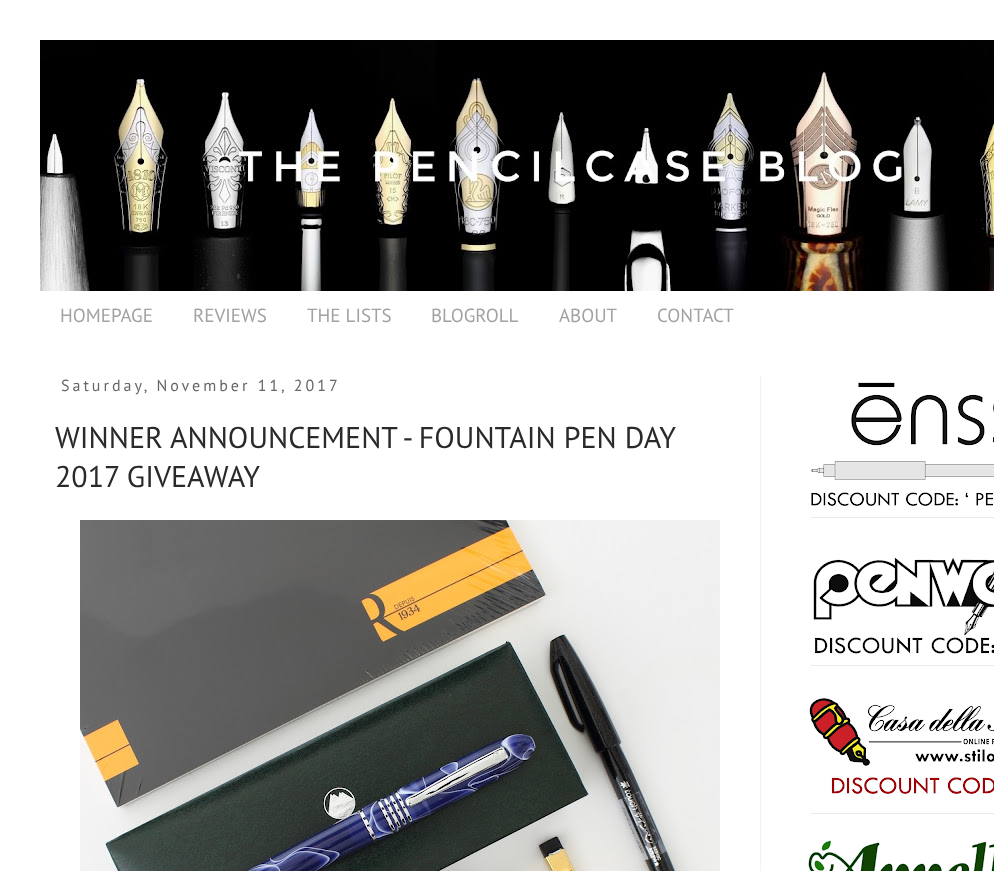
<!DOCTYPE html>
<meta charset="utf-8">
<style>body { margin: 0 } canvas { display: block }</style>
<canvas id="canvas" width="994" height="871"></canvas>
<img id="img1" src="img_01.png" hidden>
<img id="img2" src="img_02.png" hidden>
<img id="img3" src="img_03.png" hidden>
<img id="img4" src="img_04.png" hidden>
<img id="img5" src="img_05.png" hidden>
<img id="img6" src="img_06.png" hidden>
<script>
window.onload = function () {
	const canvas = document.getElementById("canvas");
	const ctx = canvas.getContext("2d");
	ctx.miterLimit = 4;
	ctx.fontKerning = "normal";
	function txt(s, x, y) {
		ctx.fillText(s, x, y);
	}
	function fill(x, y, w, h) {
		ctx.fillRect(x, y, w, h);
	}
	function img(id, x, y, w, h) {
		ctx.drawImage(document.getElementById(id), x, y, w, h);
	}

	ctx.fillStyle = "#FFFFFF";
	fill(0, 0, 994, 871);
	img("img1", 40, 40, 954, 251);
	img("img2", 80, 520, 640, 351);
	img("img3", 810, 382, 184, 136);
	img("img4", 810, 557, 184, 109);
	img("img5", 809, 698, 185, 116);
	img("img6", 808, 840, 186, 31);
	ctx.fillStyle = "#F2F2F2";
	fill(760, 375, 1, 496);
	ctx.font = "19px PT Sans";
	ctx.fillStyle = "#A2A2A2";
	txt("HOMEPAGE", 60, 322);
	txt("REVIEWS", 193, 322);
	txt("THE LISTS", 307, 322);
	txt("BLOGROLL", 431, 322);
	txt("ABOUT", 559, 322);
	txt("CONTACT", 657, 322);
	ctx.letterSpacing = "3px";
	ctx.font = "16px PT Sans";
	ctx.fillStyle = "#666666";
	txt("Saturday, November 11, 2017", 61, 391);
	ctx.letterSpacing = "0px";
	ctx.font = "30px PT Sans";
	ctx.fillStyle = "#2A2A2A";
	txt("WINNER ANNOUNCEMENT - FOUNTAIN PEN DAY", 55, 448);
	txt("2017 GIVEAWAY", 55, 487);
};
</script>
